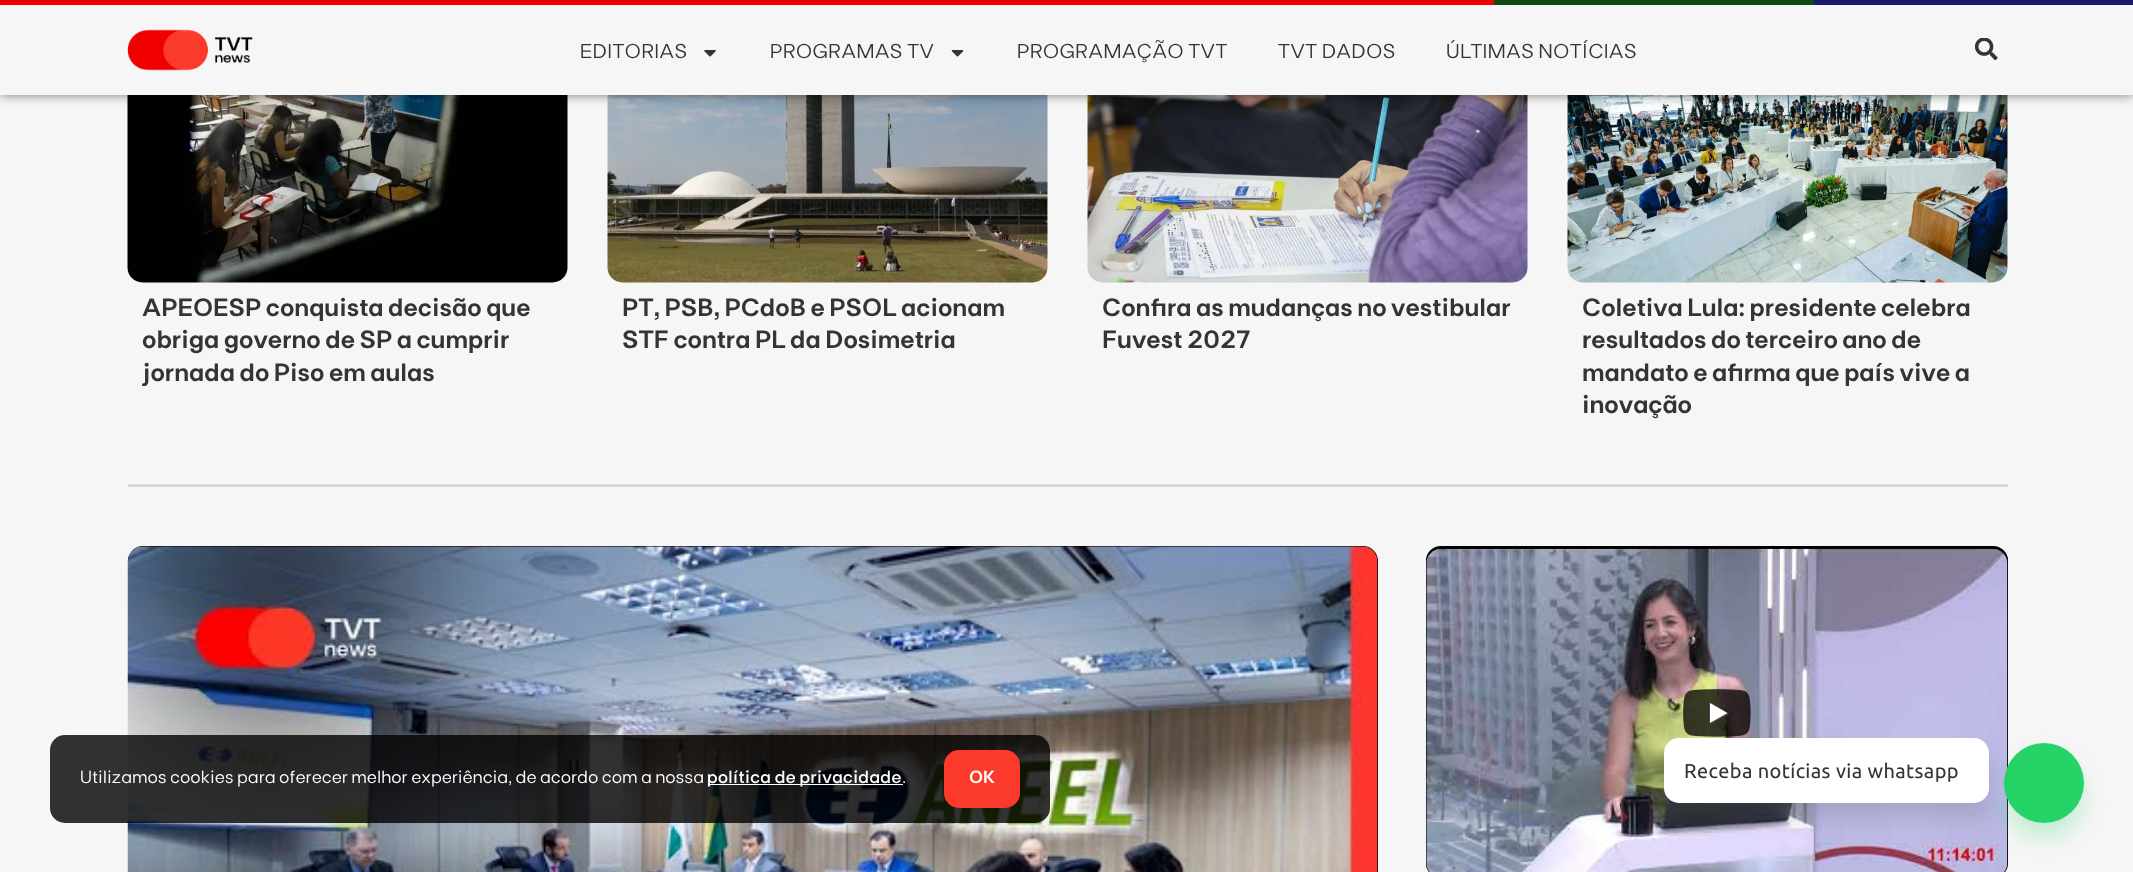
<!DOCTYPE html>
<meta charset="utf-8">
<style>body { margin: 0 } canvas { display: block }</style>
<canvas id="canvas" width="2133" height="872"></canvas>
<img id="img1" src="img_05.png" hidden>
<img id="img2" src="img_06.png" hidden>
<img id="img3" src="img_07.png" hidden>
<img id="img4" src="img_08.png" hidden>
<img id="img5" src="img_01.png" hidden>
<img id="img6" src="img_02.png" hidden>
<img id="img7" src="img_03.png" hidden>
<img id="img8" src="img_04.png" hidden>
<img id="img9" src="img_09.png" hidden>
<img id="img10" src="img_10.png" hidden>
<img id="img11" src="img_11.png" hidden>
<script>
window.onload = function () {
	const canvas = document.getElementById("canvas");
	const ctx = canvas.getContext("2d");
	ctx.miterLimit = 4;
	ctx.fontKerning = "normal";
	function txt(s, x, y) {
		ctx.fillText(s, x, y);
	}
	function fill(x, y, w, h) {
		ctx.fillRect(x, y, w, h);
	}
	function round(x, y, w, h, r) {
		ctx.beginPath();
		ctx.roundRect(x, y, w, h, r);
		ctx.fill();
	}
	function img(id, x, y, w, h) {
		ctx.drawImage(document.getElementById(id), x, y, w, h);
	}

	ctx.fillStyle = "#F6F6F6";
	fill(0, 0, 2133, 872);
	img("img1", 127, 95, 441, 188);
	img("img2", 607, 95, 441, 188);
	img("img3", 1087, 95, 441, 188);
	img("img4", 1567, 95, 441, 188);
	ctx.fillStyle = "rgba(0, 0, 0, 0.5)";
	ctx.filter = "blur(6px)";
	ctx.beginPath();
	ctx.rect(0, 0, 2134, 95);
	ctx.fill();
	ctx.filter = "none";
	ctx.fillStyle = "#F00000";
	fill(0, 0, 1494, 5);
	ctx.fillStyle = "#0D4910";
	fill(1494, 0, 320, 5);
	ctx.fillStyle = "#19196D";
	fill(1814, 0, 319, 5);
	ctx.fillStyle = "#F6F6F6";
	fill(0, 5, 2133, 90);
	img("img5", 127, 29, 126, 42);
	img("img6", 704, 50, 12, 7);
	img("img7", 951, 50, 13, 7);
	img("img8", 1975, 38, 23, 22);
	ctx.fillStyle = "#D9D8D8";
	fill(128, 484, 1880, 3);
	ctx.fillStyle = "#000000";
	round(128, 546, 1250, 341, 15);
	img("img9", 127, 546, 1251, 326);
	round(1426, 546, 582, 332, 15);
	ctx.save();
	ctx.beginPath();
	ctx.roundRect(1426, 546, 582, 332, 15);
	ctx.clip();
	fill(1426, 549, 582, 323);
	ctx.restore();
	img("img10", 1426, 548, 582, 324);
	ctx.fillStyle = "#FFFFFF";
	ctx.beginPath();
	ctx.moveTo(1709, 725);
	ctx.lineTo(1709, 702.5);
	ctx.lineTo(1729, 714);
	ctx.closePath();
	ctx.fill();
	img("img11", 1683, 689, 68, 48);
	ctx.fillStyle = "rgba(0, 0, 0, 0.8)";
	round(50, 735, 1000, 88, 15);
	ctx.fillStyle = "#FFFFFF";
	fill(708, 784, 195, 1);
	ctx.fillStyle = "#FC3A2B";
	round(944, 750, 76, 58, 15);
	ctx.fillStyle = "rgba(37, 211, 102, 0.24)";
	ctx.filter = "blur(11px)";
	ctx.beginPath();
	ctx.roundRect(2004, 758, 80, 80, 40);
	ctx.fill();
	ctx.filter = "none";
	ctx.fillStyle = "#25D366";
	ctx.beginPath();
	ctx.arc(2044, 783, 40, 0, Math.PI * 2);
	ctx.fill();
	ctx.fillStyle = "rgba(0, 0, 0, 0.12)";
	ctx.filter = "blur(11px)";
	ctx.beginPath();
	ctx.roundRect(1664, 753, 325, 65, 15);
	ctx.fill();
	ctx.filter = "none";
	ctx.fillStyle = "#FFFFFF";
	round(1664, 738, 325, 65, 15);
	ctx.letterSpacing = "0.6px";
	ctx.font = "20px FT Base";
	ctx.fillStyle = "#323436";
	txt("EDITORIAS", 580, 58);
	txt("PROGRAMAS TV", 770, 58);
	txt("PROGRAMAÇÃO TVT", 1017, 58);
	txt("TVT DADOS", 1278, 58);
	txt("ÚLTIMAS NOTÍCIAS", 1446, 58);
	ctx.letterSpacing = "0px";
	ctx.font = "600 25px FT Base";
	txt("APEOESP conquista decisão que", 142, 316);
	txt("obriga governo de SP a cumprir", 142, 348);
	txt("jornada do Piso em aulas", 142, 381);
	txt("PT, PSB, PCdoB e PSOL acionam", 622, 316);
	txt("STF contra PL da Dosimetria", 622, 348);
	txt("Confira as mudanças no vestibular", 1102, 316);
	txt("Fuvest 2027", 1102, 348);
	txt("Coletiva Lula: presidente celebra", 1582, 316);
	txt("resultados do terceiro ano de", 1582, 348);
	txt("mandato e afirma que país vive a", 1582, 381);
	txt("inovação", 1582, 413);
	ctx.letterSpacing = "0.38px";
	ctx.font = "17.5px FT Base";
	ctx.fillStyle = "#FFFFFF";
	txt("Utilizamos cookies para oferecer melhor experiência, de acordo com a nossa", 80, 783);
	ctx.font = "500 17.5px FT Base";
	txt("política de privacidade", 707, 783);
	ctx.font = "17.5px FT Base";
	txt(".", 902, 783);
	ctx.letterSpacing = "0px";
	ctx.font = "600 17.5px FT Base";
	txt("OK", 969, 783);
	ctx.letterSpacing = "0.38px";
	ctx.font = "20px Ubuntu";
	ctx.fillStyle = "#323436";
	txt("Receba notícias via whatsapp", 1684, 778);
};
</script>
